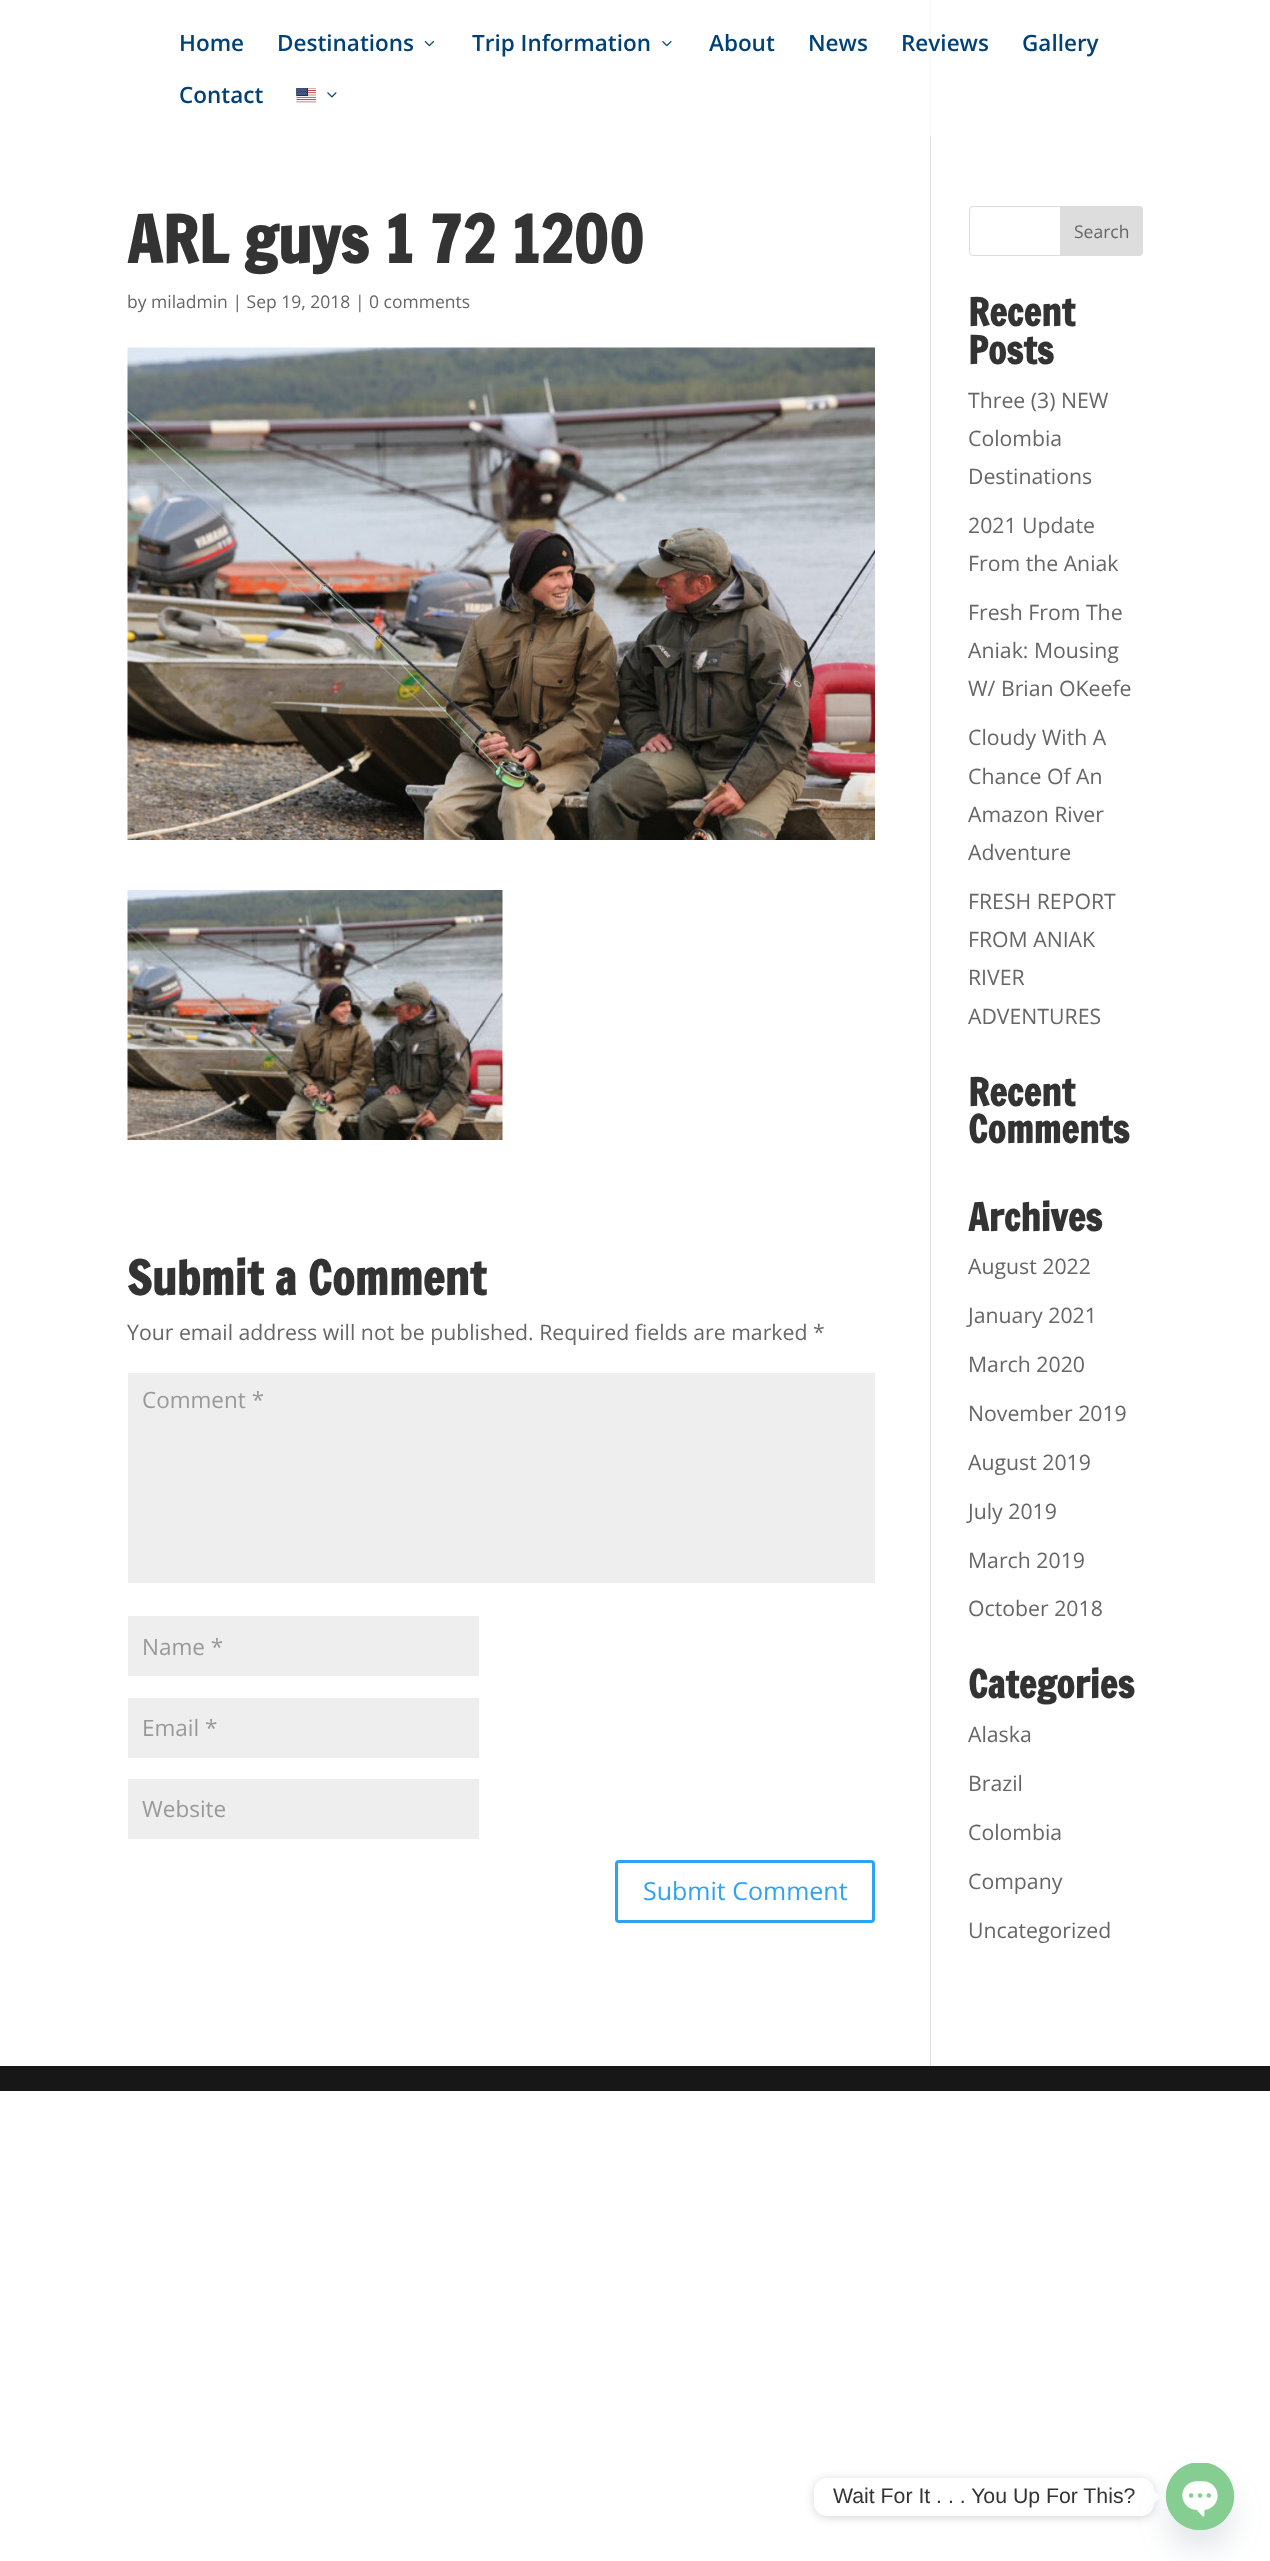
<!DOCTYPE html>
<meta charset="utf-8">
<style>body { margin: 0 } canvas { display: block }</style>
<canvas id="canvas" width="1270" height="2561"></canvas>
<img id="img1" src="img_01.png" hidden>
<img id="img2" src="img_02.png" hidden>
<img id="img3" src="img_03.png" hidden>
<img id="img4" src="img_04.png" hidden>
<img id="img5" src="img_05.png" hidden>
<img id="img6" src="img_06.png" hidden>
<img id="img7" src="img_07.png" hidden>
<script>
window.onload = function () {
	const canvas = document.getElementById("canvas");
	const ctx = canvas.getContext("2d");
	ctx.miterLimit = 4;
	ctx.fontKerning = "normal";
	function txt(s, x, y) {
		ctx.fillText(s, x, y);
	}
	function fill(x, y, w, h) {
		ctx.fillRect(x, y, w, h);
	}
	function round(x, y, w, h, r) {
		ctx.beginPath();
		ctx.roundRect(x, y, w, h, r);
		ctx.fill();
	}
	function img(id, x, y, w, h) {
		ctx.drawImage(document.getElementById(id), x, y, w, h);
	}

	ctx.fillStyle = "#FFFFFF";
	fill(0, 0, 1270, 2561);
	img("img1", 424, 41, 10, 6);
	img("img2", 662, 41, 10, 6);
	img("img3", 296, 88, 20, 15);
	img("img4", 327, 92, 10, 6);
	ctx.fillStyle = "#E2E2E2";
	fill(930, 136, 1, 1930);
	ctx.fillStyle = "#F7F7F7";
	fill(930, 0, 1, 136);
	img("img5", 127, 347, 748, 493);
	img("img6", 127, 890, 376, 250);
	ctx.fillStyle = "#EEEEEE";
	fill(128, 1373, 747, 210);
	fill(128, 1616, 351, 60);
	fill(128, 1698, 351, 60);
	fill(128, 1779, 351, 60);
	ctx.beginPath();
	ctx.roundRect(616.5, 1861.5, 257, 60, 2.5);
	ctx.strokeStyle = "#2EA3F2";
	ctx.lineWidth = 3;
	ctx.stroke();
	ctx.beginPath();
	ctx.roundRect(969.5, 206.5, 173, 49, 3.5);
	ctx.strokeStyle = "#DDDDDD";
	ctx.lineWidth = 1;
	ctx.stroke();
	ctx.fillStyle = "#DDDDDD";
	ctx.beginPath();
	ctx.roundRect(1060.5, 206.5, 82, 49, [0, 3.5, 3.5, 0]);
	ctx.fill();
	ctx.stroke();
	ctx.fillStyle = "#171717";
	fill(0, 2066, 1270, 25);
	ctx.fillStyle = "rgba(0, 0, 0, 0.15)";
	ctx.filter = "blur(5px)";
	ctx.beginPath();
	ctx.roundRect(814, 2479, 340, 39, 13);
	ctx.fill();
	ctx.filter = "none";
	ctx.fillStyle = "#FFFFFF";
	round(814, 2478, 340, 38, 13);
	ctx.beginPath();
	ctx.moveTo(1154, 2503);
	ctx.lineTo(1154, 2490.5);
	ctx.lineTo(1160, 2497);
	ctx.closePath();
	ctx.fill();
	ctx.fillStyle = "rgba(73, 104, 126, 0.16)";
	ctx.filter = "blur(15px)";
	ctx.beginPath();
	ctx.roundRect(1166, 2483, 68, 67, 33.5);
	ctx.fill();
	ctx.filter = "none";
	ctx.fillStyle = "#86CD91";
	round(1166, 2463, 68, 67, 33.5);
	img("img7", 1166, 2463, 68, 67);
	ctx.font = "600 22.5px Open Sans";
	ctx.fillStyle = "#004278";
	txt("Home", 179, 51);
	txt("Destinations", 277, 51);
	txt("Trip Information", 472, 51);
	txt("About", 709, 51);
	txt("News", 808, 51);
	txt("Reviews", 901, 51);
	txt("Gallery", 1022, 51);
	txt("Contact", 179, 103);
	ctx.font = "bold 63.75px Francois One";
	ctx.fillStyle = "#333333";
	txt("ARL guys 1 72 1200", 127, 263);
	ctx.font = "17.5px Open Sans";
	ctx.fillStyle = "#666666";
	txt("by miladmin | Sep 19, 2018 | 0 comments", 127, 308);
	ctx.font = "bold 46.25px Francois One";
	ctx.fillStyle = "#333333";
	txt("Submit a Comment", 127, 1295);
	ctx.font = "21.25px Open Sans";
	ctx.fillStyle = "#666666";
	txt("Your email address will not be published. Required fields are marked *", 127, 1340);
	ctx.font = "22.5px Open Sans";
	ctx.fillStyle = "#999999";
	txt("Comment *", 142, 1408);
	txt("Name *", 142, 1655);
	txt("Email *", 142, 1736);
	txt("Website", 142, 1817);
	ctx.font = "25px Open Sans";
	ctx.fillStyle = "#2EA3F2";
	txt("Submit Comment", 643, 1900);
	ctx.font = "17.5px Open Sans";
	ctx.fillStyle = "#666666";
	txt("Search", 1074, 238);
	ctx.font = "bold 37.5px Francois One";
	ctx.fillStyle = "#333333";
	txt("Recent", 968, 326);
	txt("Posts", 968, 364);
	ctx.font = "21.25px Open Sans";
	ctx.fillStyle = "#666666";
	txt("Three (3) NEW", 968, 408);
	txt("Colombia", 968, 446);
	txt("Destinations", 968, 484);
	txt("2021 Update", 968, 533);
	txt("From the Aniak", 968, 571);
	txt("Fresh From The", 968, 620);
	txt("Aniak: Mousing", 968, 658);
	txt("W/ Brian OKeefe", 968, 696);
	txt("Cloudy With A", 968, 745);
	txt("Chance Of An", 968, 784);
	txt("Amazon River", 968, 822);
	txt("Adventure", 968, 860);
	txt("FRESH REPORT", 968, 909);
	txt("FROM ANIAK", 968, 947);
	txt("RIVER", 968, 985);
	txt("ADVENTURES", 968, 1024);
	ctx.font = "bold 37.5px Francois One";
	ctx.fillStyle = "#333333";
	txt("Recent", 968, 1106);
	txt("Comments", 968, 1143);
	txt("Archives", 968, 1231);
	ctx.font = "21.25px Open Sans";
	ctx.fillStyle = "#666666";
	txt("August 2022", 968, 1274);
	txt("January 2021", 968, 1323);
	txt("March 2020", 968, 1372);
	txt("November 2019", 968, 1421);
	txt("August 2019", 968, 1470);
	txt("July 2019", 968, 1519);
	txt("March 2019", 968, 1568);
	txt("October 2018", 968, 1616);
	ctx.font = "bold 37.5px Francois One";
	ctx.fillStyle = "#333333";
	txt("Categories", 968, 1698);
	ctx.font = "21.25px Open Sans";
	ctx.fillStyle = "#666666";
	txt("Alaska", 968, 1742);
	txt("Brazil", 968, 1791);
	txt("Colombia", 968, 1840);
	txt("Company", 968, 1889);
	txt("Uncategorized", 968, 1938);
	ctx.font = "21.25px Liberation Sans";
	ctx.fillStyle = "#333333";
	txt("Wait For It . . . You Up For This?", 833, 2503);
};
</script>
